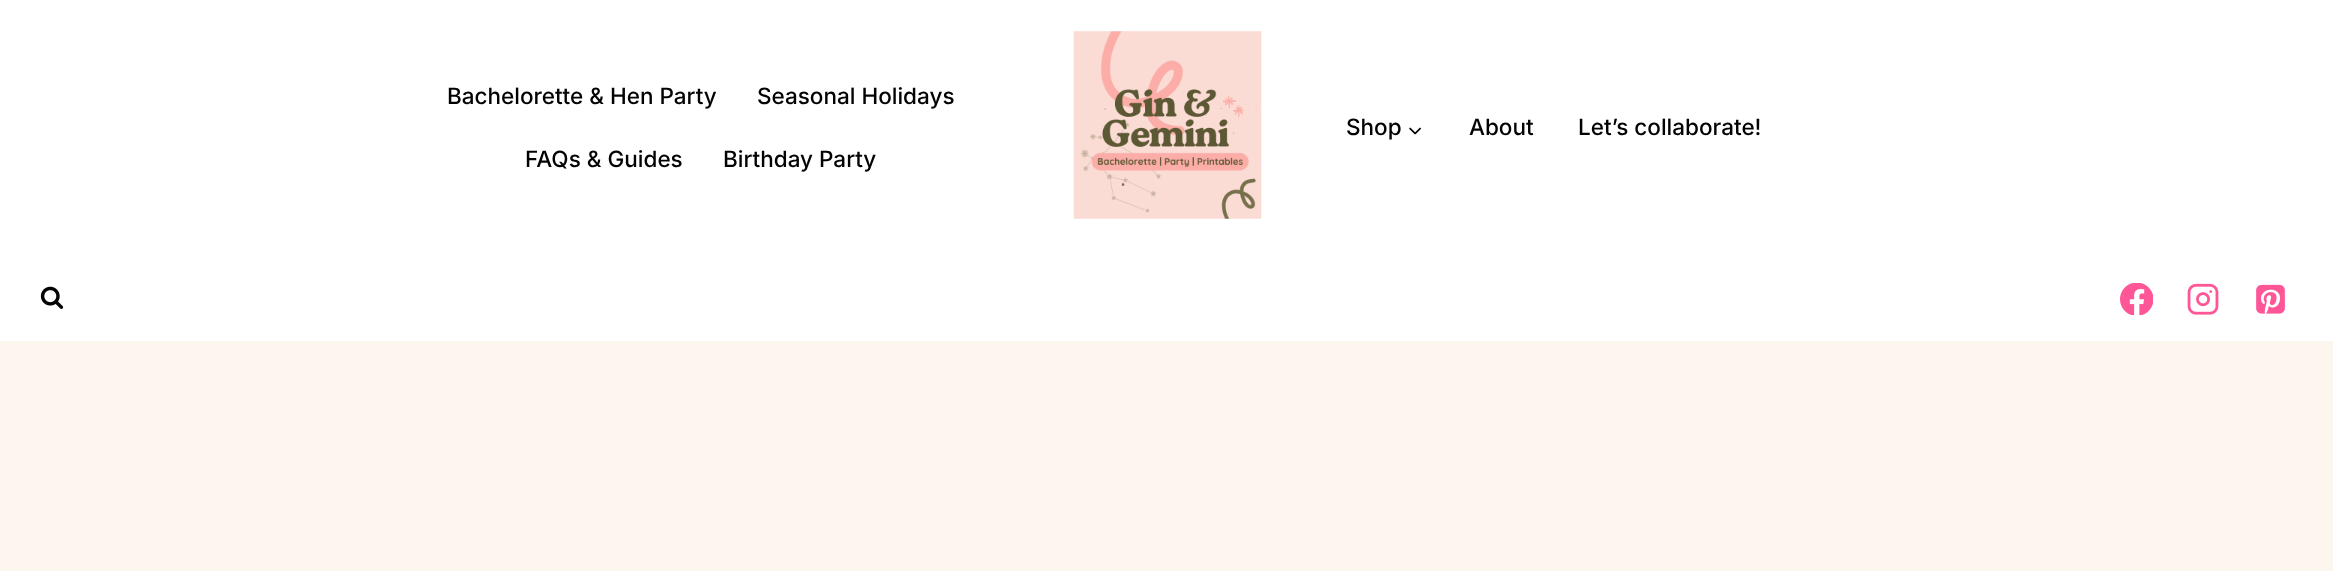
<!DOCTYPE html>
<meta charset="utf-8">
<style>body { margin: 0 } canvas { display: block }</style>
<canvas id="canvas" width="2333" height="571"></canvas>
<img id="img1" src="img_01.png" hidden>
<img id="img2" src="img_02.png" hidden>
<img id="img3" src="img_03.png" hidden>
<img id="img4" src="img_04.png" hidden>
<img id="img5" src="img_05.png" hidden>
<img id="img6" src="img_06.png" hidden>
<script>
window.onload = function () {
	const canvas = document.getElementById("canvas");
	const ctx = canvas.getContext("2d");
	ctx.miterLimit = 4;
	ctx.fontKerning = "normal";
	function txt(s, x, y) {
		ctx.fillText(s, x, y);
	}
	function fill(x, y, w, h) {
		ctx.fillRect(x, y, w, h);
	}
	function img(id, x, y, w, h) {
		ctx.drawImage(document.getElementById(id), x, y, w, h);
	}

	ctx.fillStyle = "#FDF6EE";
	fill(0, 0, 2333, 571);
	ctx.fillStyle = "#FFFFFF";
	fill(0, 0, 2333, 341);
	img("img1", 1073, 31, 189, 188);
	img("img2", 1409, 127, 12, 8);
	img("img3", 40, 286, 24, 23);
	img("img4", 2120, 283, 33, 32);
	img("img5", 2187, 283, 32, 32);
	img("img6", 2256, 284, 29, 30);
	ctx.font = "500 22.5px Inter";
	ctx.fillStyle = "#020202";
	txt("Bachelorette & Hen Party", 447, 104);
	txt("Seasonal Holidays", 757, 104);
	txt("FAQs & Guides", 525, 167);
	txt("Birthday Party", 723, 167);
	txt("Shop", 1346, 135);
	txt("About", 1469, 135);
	txt("Let’s collaborate!", 1578, 135);
};
</script>
